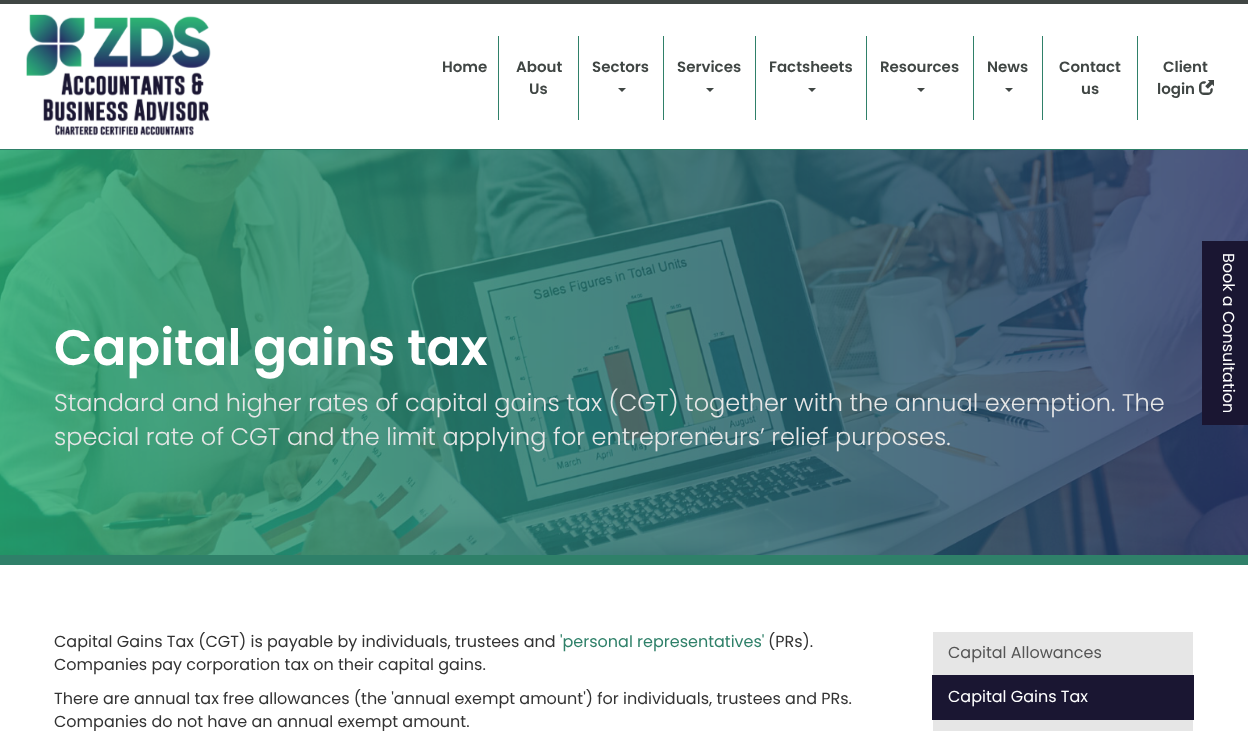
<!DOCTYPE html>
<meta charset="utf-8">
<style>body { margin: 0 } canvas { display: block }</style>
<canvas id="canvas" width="1248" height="731"></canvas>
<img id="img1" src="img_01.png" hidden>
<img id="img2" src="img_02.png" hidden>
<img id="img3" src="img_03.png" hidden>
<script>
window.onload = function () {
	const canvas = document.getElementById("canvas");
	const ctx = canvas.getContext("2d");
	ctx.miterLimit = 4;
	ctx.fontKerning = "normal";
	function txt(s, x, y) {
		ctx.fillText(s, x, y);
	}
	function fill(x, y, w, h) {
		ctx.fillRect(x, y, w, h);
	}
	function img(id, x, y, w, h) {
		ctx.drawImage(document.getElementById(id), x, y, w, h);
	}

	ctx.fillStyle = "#FFFFFF";
	fill(0, 0, 1248, 731);
	ctx.fillStyle = "#404644";
	fill(0, 0, 1248, 4);
	ctx.fillStyle = "#2F8069";
	fill(0, 149, 1248, 1);
	img("img1", 26, 14, 185, 122);
	fill(498, 36, 1, 84);
	fill(578, 36, 1, 84);
	ctx.fillStyle = "#404644";
	ctx.beginPath();
	ctx.moveTo(618, 88);
	ctx.lineTo(626, 88);
	ctx.lineTo(622, 92);
	ctx.closePath();
	ctx.fill();
	ctx.fillStyle = "#2F8069";
	fill(663, 36, 1, 84);
	ctx.fillStyle = "#404644";
	ctx.beginPath();
	ctx.moveTo(706, 88);
	ctx.lineTo(714, 88);
	ctx.lineTo(710, 92);
	ctx.closePath();
	ctx.fill();
	ctx.fillStyle = "#2F8069";
	fill(755, 36, 1, 84);
	ctx.fillStyle = "#404644";
	ctx.beginPath();
	ctx.moveTo(808, 88);
	ctx.lineTo(816, 88);
	ctx.lineTo(812, 92);
	ctx.closePath();
	ctx.fill();
	ctx.fillStyle = "#2F8069";
	fill(866, 36, 1, 84);
	ctx.fillStyle = "#404644";
	ctx.beginPath();
	ctx.moveTo(917, 88);
	ctx.lineTo(925, 88);
	ctx.lineTo(921, 92);
	ctx.closePath();
	ctx.fill();
	ctx.fillStyle = "#2F8069";
	fill(973, 36, 1, 84);
	ctx.fillStyle = "#404644";
	ctx.beginPath();
	ctx.moveTo(1005, 88);
	ctx.lineTo(1013, 88);
	ctx.lineTo(1009, 92);
	ctx.closePath();
	ctx.fill();
	ctx.fillStyle = "#2F8069";
	fill(1042, 36, 1, 84);
	fill(1137, 36, 1, 84);
	img("img2", 1199, 80, 15, 15);
	img("img3", 0, 150, 1248, 405);
	fill(0, 555, 1248, 10);
	ctx.fillStyle = "#1A1632";
	fill(1202, 241, 46, 184);
	ctx.fillStyle = "#E6E6E6";
	fill(933, 632, 260, 43);
	ctx.fillStyle = "#1A1632";
	fill(932, 675, 262, 45);
	ctx.fillStyle = "#E6E6E6";
	fill(933, 720, 260, 11);
	ctx.font = "600 15px Poppins";
	ctx.fillStyle = "#404644";
	txt("Home", 442, 72);
	txt("About", 516, 72);
	txt("Us", 529, 94);
	txt("Sectors", 592, 72);
	txt("Services", 677, 72);
	txt("Factsheets", 769, 72);
	txt("Resources", 880, 72);
	txt("News", 987, 72);
	txt("Contact", 1059, 72);
	txt("us", 1081, 94);
	txt("Client", 1163, 72);
	txt("login", 1157, 94);
	ctx.font = "600 50px Poppins";
	ctx.fillStyle = "#FFFFFF";
	txt("Capital gains tax", 54, 365);
	ctx.font = "300 24px Poppins";
	ctx.fillStyle = "#E6E6E6";
	txt("Standard and higher rates of capital gains tax (CGT) together with the annual exemption. The", 54, 411);
	txt("special rate of CGT and the limit applying for entrepreneurs’ relief purposes.", 54, 445);
	ctx.font = "16px Poppins";
	ctx.fillStyle = "#FFFFFF";
	ctx.save();
	ctx.translate(1223, 253);
	ctx.rotate(90 * Math.PI / 180);
	ctx.fillText("Book a Consultation", 0, 0);
	ctx.restore();
	ctx.fillStyle = "#333333";
	txt("Capital Gains Tax (CGT) is payable by individuals, trustees and", 54, 647);
	ctx.fillStyle = "#2F8069";
	txt("'personal representatives'", 560, 647);
	ctx.fillStyle = "#333333";
	txt("(PRs).", 768, 647);
	txt("Companies pay corporation tax on their capital gains.", 54, 670);
	txt("There are annual tax free allowances (the 'annual exempt amount') for individuals, trustees and PRs.", 54, 704);
	txt("Companies do not have an annual exempt amount.", 54, 727);
	ctx.fillStyle = "#555555";
	txt("Capital Allowances", 948, 658);
	ctx.fillStyle = "#FFFFFF";
	txt("Capital Gains Tax", 948, 702);
};
</script>
